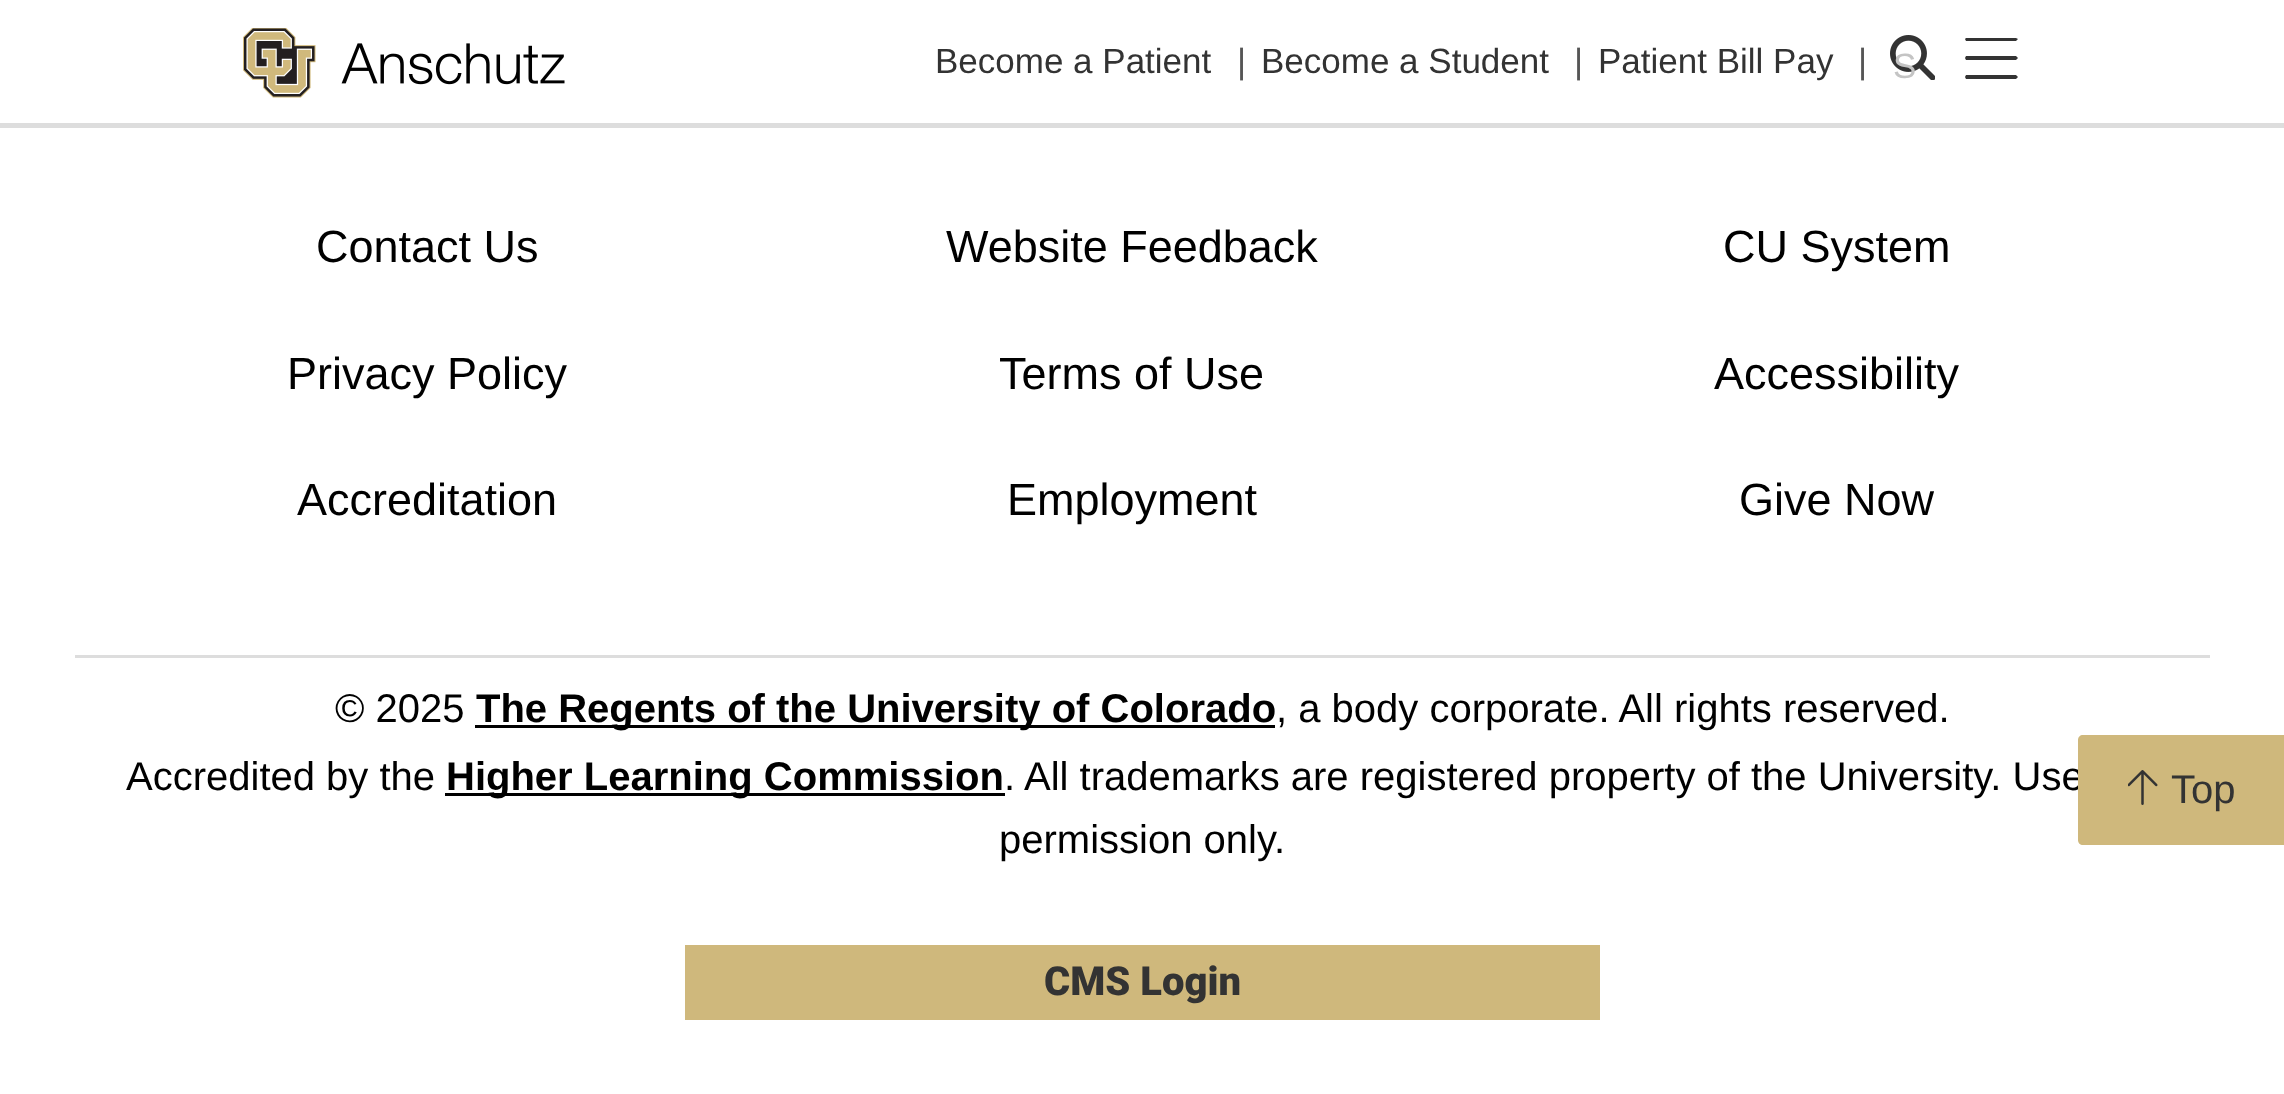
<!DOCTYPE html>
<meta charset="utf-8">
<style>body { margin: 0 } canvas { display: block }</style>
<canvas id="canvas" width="2284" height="1094"></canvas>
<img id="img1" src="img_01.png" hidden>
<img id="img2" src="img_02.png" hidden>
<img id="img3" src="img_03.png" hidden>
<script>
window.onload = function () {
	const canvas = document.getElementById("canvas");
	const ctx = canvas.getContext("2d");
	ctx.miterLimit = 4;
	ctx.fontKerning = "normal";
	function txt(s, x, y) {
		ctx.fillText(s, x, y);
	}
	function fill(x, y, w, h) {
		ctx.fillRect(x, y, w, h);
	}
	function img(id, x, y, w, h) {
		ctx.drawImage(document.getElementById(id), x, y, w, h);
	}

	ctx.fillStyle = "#FFFFFF";
	fill(0, 0, 2284, 1094);
	img("img1", 243, 28, 322, 70);
	img("img2", 1890, 35, 45, 45);
	ctx.fillStyle = "#333333";
	ctx.beginPath();
	ctx.moveTo(1965, 39);
	ctx.lineTo(1966, 38);
	ctx.lineTo(2016, 38);
	ctx.lineTo(2018, 39);
	ctx.lineTo(2016, 41);
	ctx.lineTo(1966, 41);
	ctx.closePath();
	ctx.moveTo(1965, 58);
	ctx.lineTo(1966, 56);
	ctx.lineTo(2016, 56);
	ctx.lineTo(2018, 58);
	ctx.lineTo(2016, 60);
	ctx.lineTo(1966, 60);
	ctx.closePath();
	ctx.moveTo(2018, 77);
	ctx.lineTo(2016, 79);
	ctx.lineTo(1966, 79);
	ctx.lineTo(1965, 77);
	ctx.lineTo(1966, 75);
	ctx.lineTo(2016, 75);
	ctx.closePath();
	ctx.fill();
	ctx.fillStyle = "#DDDDDD";
	fill(0, 123, 2284, 5);
	fill(75, 655, 2135, 3);
	ctx.fillStyle = "#000000";
	fill(475, 725, 800, 3);
	fill(445, 793, 560, 3);
	ctx.fillStyle = "#CFB87C";
	fill(685, 945, 915, 75);
	ctx.font = "35px Liberation Sans";
	ctx.fillStyle = "#333333";
	txt("Become a Patient", 935, 73);
	ctx.fillStyle = "#555555";
	txt("|", 1237, 73);
	ctx.fillStyle = "#333333";
	txt("Become a Student", 1261, 73);
	ctx.fillStyle = "#555555";
	txt("|", 1574, 73);
	ctx.fillStyle = "#333333";
	txt("Patient Bill Pay", 1598, 73);
	ctx.fillStyle = "#555555";
	txt("|", 1858, 73);
	ctx.fillStyle = "#C4C4C4";
	txt("S", 1893, 78);
	ctx.font = "45px Liberation Sans";
	ctx.fillStyle = "#000000";
	txt("Contact Us", 316, 262);
	txt("Website Feedback", 946, 262);
	txt("CU System", 1723, 262);
	txt("Privacy Policy", 287, 389);
	txt("Terms of Use", 999, 389);
	txt("Accessibility", 1714, 389);
	txt("Accreditation", 297, 515);
	txt("Employment", 1007, 515);
	txt("Give Now", 1739, 515);
	ctx.font = "40px Liberation Sans";
	txt("© 2025", 335, 722);
	ctx.font = "bold 40px Liberation Sans";
	txt("The Regents of the University of Colorado", 476, 722);
	ctx.font = "40px Liberation Sans";
	txt(", a body corporate. All rights reserved.", 1276, 722);
	txt("Accredited by the", 126, 790);
	ctx.font = "bold 40px Liberation Sans";
	txt("Higher Learning Commission", 446, 790);
	ctx.font = "40px Liberation Sans";
	txt(". All trademarks are registered property of the University. Use", 1004, 790);
	txt("permission only.", 999, 853);
	ctx.fillStyle = "#CFB87C";
	ctx.beginPath();
	ctx.moveTo(2083, 735);
	ctx.lineTo(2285, 735);
	ctx.lineTo(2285, 845);
	ctx.lineTo(2083, 845);
	ctx.bezierCurveTo(2080, 845, 2078, 843, 2078, 840);
	ctx.lineTo(2078, 740);
	ctx.bezierCurveTo(2078, 737, 2080, 735, 2083, 735);
	ctx.closePath();
	ctx.fill();
	img("img3", 2128, 770, 30, 35);
	ctx.fillStyle = "#333333";
	txt("Top", 2171, 803);
	ctx.font = "900 40px Roboto";
	txt("CMS Login", 1044, 995);
};
</script>
